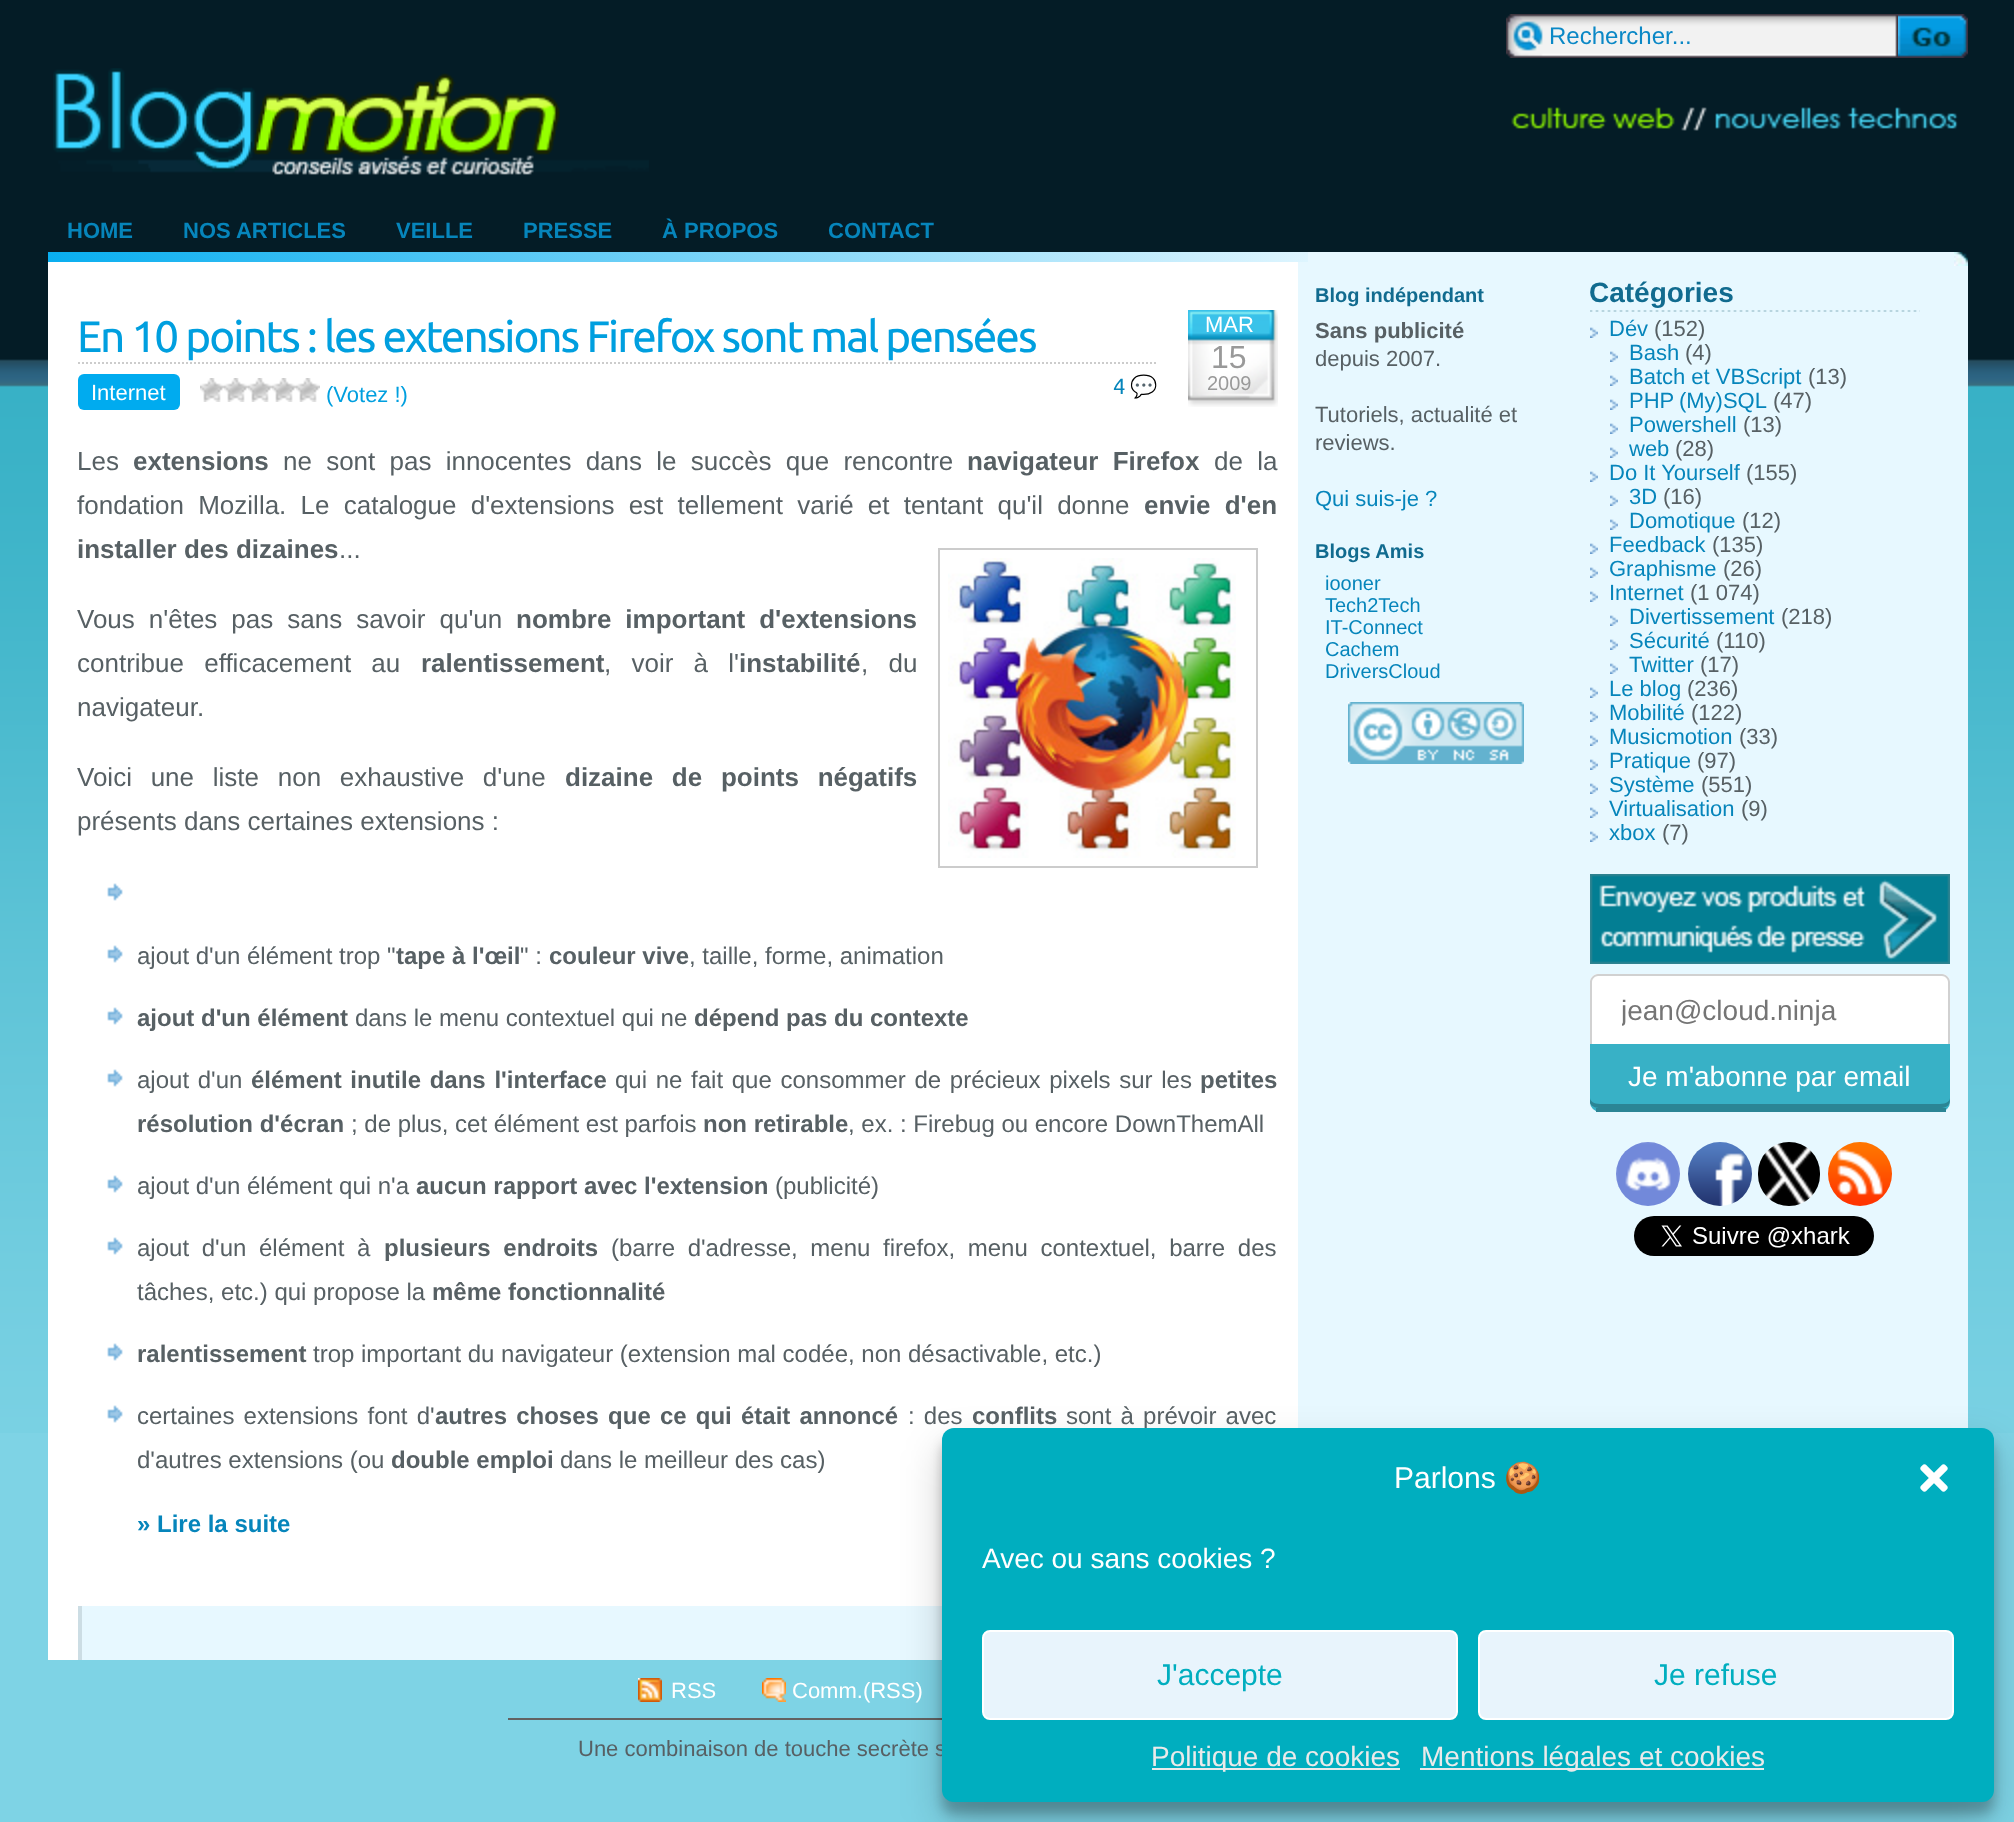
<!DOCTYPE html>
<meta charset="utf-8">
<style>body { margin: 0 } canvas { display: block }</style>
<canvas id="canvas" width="2014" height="1822"></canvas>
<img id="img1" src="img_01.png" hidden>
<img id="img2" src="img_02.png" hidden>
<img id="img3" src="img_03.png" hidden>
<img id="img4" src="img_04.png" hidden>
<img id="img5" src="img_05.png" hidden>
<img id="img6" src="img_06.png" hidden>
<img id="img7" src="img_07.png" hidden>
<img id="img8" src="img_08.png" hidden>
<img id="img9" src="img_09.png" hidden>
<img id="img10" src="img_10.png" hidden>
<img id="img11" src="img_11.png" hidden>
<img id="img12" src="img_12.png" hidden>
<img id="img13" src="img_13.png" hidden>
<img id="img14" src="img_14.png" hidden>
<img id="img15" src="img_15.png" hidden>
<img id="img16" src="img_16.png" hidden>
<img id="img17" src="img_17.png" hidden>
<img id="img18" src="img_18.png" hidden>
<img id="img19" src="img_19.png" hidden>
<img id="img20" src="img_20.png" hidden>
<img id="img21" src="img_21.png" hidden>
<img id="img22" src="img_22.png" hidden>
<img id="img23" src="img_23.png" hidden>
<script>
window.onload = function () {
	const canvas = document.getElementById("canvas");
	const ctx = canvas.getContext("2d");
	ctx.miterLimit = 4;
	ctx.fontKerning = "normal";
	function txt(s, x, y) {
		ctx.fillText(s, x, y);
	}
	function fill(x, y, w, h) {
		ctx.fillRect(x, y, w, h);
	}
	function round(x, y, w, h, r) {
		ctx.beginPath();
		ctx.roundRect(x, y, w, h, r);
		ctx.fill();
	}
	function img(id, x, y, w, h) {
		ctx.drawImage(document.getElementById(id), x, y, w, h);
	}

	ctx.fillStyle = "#7ED3E5";
	fill(0, 0, 2014, 1822);
	img("img1", 0, 0, 2014, 1433);
	img("img2", 1506, 14, 392, 44);
	img("img3", 1898, 14, 70, 44);
	img("img4", 53, 68, 596, 107);
	img("img5", 1511, 107, 447, 24);
	ctx.fillStyle = "#FFFFFF";
	fill(48, 262, 1250, 1398);
	ctx.fillStyle = "#E7F8FF";
	fill(1298, 252, 670, 1176);
	img("img6", 1954, 252, 14, 14);
	img("img7", 48, 252, 1260, 10);
	ctx.beginPath();
	ctx.moveTo(78, 363);
	ctx.lineTo(1158, 363);
	ctx.strokeStyle = "#CCCCCC";
	ctx.lineWidth = 2;
	ctx.setLineDash([2, 2]);
	ctx.stroke();
	ctx.fillStyle = "#00ABEF";
	round(78, 374, 102, 36, 6);
	img("img8", 200, 378, 24, 24);
	img("img8", 224, 378, 24, 24);
	img("img8", 248, 378, 24, 24);
	img("img8", 272, 378, 24, 24);
	img("img8", 296, 378, 24, 24);
	img("img9", 1188, 310, 90, 97);
	ctx.setLineDash([]);
	ctx.strokeRect(939, 549, 318, 318);
	img("img10", 948, 558, 288, 300);
	img("img11", 107, 883, 16, 18);
	img("img11", 107, 945, 16, 18);
	img("img11", 107, 1007, 16, 18);
	img("img11", 107, 1069, 16, 18);
	img("img11", 107, 1175, 16, 18);
	img("img11", 107, 1237, 16, 18);
	img("img11", 107, 1343, 16, 18);
	img("img11", 107, 1405, 16, 18);
	ctx.fillStyle = "#E7F8FF";
	fill(82, 1606, 860, 54);
	ctx.fillStyle = "#CCDDE4";
	fill(78, 1606, 4, 54);
	img("img12", 1348, 702, 176, 62);
	img("img13", 1590, 310, 330, 2);
	img("img14", 1590, 327, 8, 11);
	img("img14", 1610, 351, 8, 11);
	img("img14", 1610, 375, 8, 11);
	img("img14", 1610, 399, 8, 11);
	img("img14", 1610, 423, 8, 11);
	img("img14", 1610, 447, 8, 11);
	img("img14", 1590, 471, 8, 11);
	img("img14", 1610, 495, 8, 11);
	img("img14", 1610, 519, 8, 11);
	img("img14", 1590, 543, 8, 11);
	img("img14", 1590, 567, 8, 11);
	img("img14", 1590, 591, 8, 11);
	img("img14", 1610, 615, 8, 11);
	img("img14", 1610, 639, 8, 11);
	img("img14", 1610, 663, 8, 11);
	img("img14", 1590, 687, 8, 11);
	img("img14", 1590, 711, 8, 11);
	img("img14", 1590, 735, 8, 11);
	img("img14", 1590, 759, 8, 11);
	img("img14", 1590, 783, 8, 11);
	img("img14", 1590, 807, 8, 11);
	img("img14", 1590, 831, 8, 11);
	img("img15", 1590, 874, 360, 90);
	ctx.fillStyle = "#FFFFFF";
	round(1590, 974, 360, 80, 8);
	ctx.fillStyle = "#D1D1D1";
	ctx.beginPath();
	ctx.moveTo(1598, 974);
	ctx.lineTo(1942, 974);
	ctx.bezierCurveTo(1946, 974, 1950, 978, 1950, 982);
	ctx.lineTo(1950, 1046);
	ctx.bezierCurveTo(1950, 1050, 1946, 1054, 1942, 1054);
	ctx.lineTo(1598, 1054);
	ctx.bezierCurveTo(1594, 1054, 1590, 1050, 1590, 1046);
	ctx.lineTo(1590, 982);
	ctx.bezierCurveTo(1590, 978, 1594, 974, 1598, 974);
	ctx.closePath();
	ctx.moveTo(1598, 976);
	ctx.lineTo(1942, 976);
	ctx.bezierCurveTo(1945, 976, 1948, 979, 1948, 982);
	ctx.lineTo(1948, 1046);
	ctx.bezierCurveTo(1948, 1050, 1945, 1054, 1942, 1054);
	ctx.lineTo(1598, 1054);
	ctx.bezierCurveTo(1595, 1054, 1592, 1050, 1592, 1046);
	ctx.lineTo(1592, 982);
	ctx.bezierCurveTo(1592, 979, 1595, 976, 1598, 976);
	ctx.closePath();
	ctx.fill("evenodd");
	ctx.fillStyle = "#38B1C6";
	ctx.beginPath();
	ctx.roundRect(1590, 1044, 360, 68, [0, 0, 10, 10]);
	ctx.fill();
	ctx.fillStyle = "#2B8595";
	ctx.beginPath();
	ctx.moveTo(1590, 1098);
	ctx.lineTo(1590, 1103);
	ctx.bezierCurveTo(1591, 1107, 1597, 1108, 1600, 1108);
	ctx.lineTo(1942, 1108);
	ctx.bezierCurveTo(1949, 1107, 1950, 1104, 1950, 1098);
	ctx.bezierCurveTo(1950, 1101, 1946, 1104, 1940, 1104);
	ctx.lineTo(1600, 1104);
	ctx.bezierCurveTo(1594, 1104, 1590, 1101, 1590, 1098);
	ctx.closePath();
	ctx.fill();
	fill(1596, 1108, 350, 4);
	img("img16", 1616, 1142, 64, 64);
	img("img17", 1688, 1142, 64, 64);
	img("img18", 1758, 1142, 62, 64);
	img("img19", 1828, 1142, 64, 64);
	img("img20", 1634, 1216, 240, 40);
	ctx.fillStyle = "#626262";
	fill(508, 1718, 434, 2);
	img("img21", 638, 1678, 24, 24);
	img("img22", 762, 1678, 24, 24);
	ctx.fillStyle = "rgba(0, 0, 0, 0.23)";
	ctx.filter = "blur(6px)";
	ctx.beginPath();
	ctx.roundRect(942, 1440, 1052, 374, 12);
	ctx.fill();
	ctx.filter = "none";
	ctx.fillStyle = "rgba(0, 0, 0, 0.19)";
	ctx.filter = "blur(20px)";
	ctx.beginPath();
	ctx.roundRect(942, 1448, 1052, 374, 12);
	ctx.fill();
	ctx.filter = "none";
	ctx.font = "24px Liberation Sans";
	ctx.fillStyle = "#0B88C6";
	txt("Rechercher...", 1549, 44);
	ctx.font = "bold 22px Liberation Sans";
	ctx.fillStyle = "#0685BB";
	txt("HOME", 67, 238);
	txt("NOS ARTICLES", 183, 238);
	txt("VEILLE", 396, 238);
	txt("PRESSE", 523, 238);
	txt("À PROPOS", 662, 238);
	txt("CONTACT", 828, 238);
	ctx.letterSpacing = "-2px";
	ctx.font = "44px Ubuntu";
	ctx.fillStyle = "#009FDF";
	txt("En 10 points : les extensions Firefox sont mal pensées", 77, 352);
	ctx.letterSpacing = "0px";
	ctx.font = "22px Liberation Sans";
	ctx.fillStyle = "#FFFFFF";
	txt("Internet", 91, 400);
	ctx.fillStyle = "#009FDF";
	txt("(Votez !)", 326, 402);
	ctx.font = "22px Ubuntu";
	ctx.fillStyle = "#0685BB";
	txt("4", 1113, 394);
	ctx.font = "22px Noto Color Emoji";
	ctx.fillStyle = "#009FDF";
	txt("💬", 1130, 394);
	ctx.font = "22px Liberation Sans";
	ctx.fillStyle = "#FFFFFF";
	txt("MAR", 1205, 332);
	ctx.font = "32px Liberation Sans";
	ctx.fillStyle = "#999999";
	txt("15", 1211, 368);
	ctx.font = "20px Liberation Sans";
	txt("2009", 1207, 390);
	ctx.font = "26px Liberation Sans";
	ctx.fillStyle = "#576064";
	txt("Les", 77, 470);
	ctx.font = "bold 26px Liberation Sans";
	txt("extensions", 133, 470);
	ctx.wordSpacing = "7px";
	ctx.font = "26px Liberation Sans";
	txt("ne sont pas innocentes dans le succès que rencontre", 283, 470);
	ctx.font = "bold 26px Liberation Sans";
	txt("navigateur Firefox", 967, 470);
	ctx.font = "26px Liberation Sans";
	txt("de la", 1214, 470);
	txt("fondation Mozilla. Le catalogue d'extensions est tellement varié et tentant qu'il donne", 77, 514);
	ctx.font = "bold 26px Liberation Sans";
	txt("envie d'en", 1144, 514);
	ctx.wordSpacing = "0px";
	txt("installer des dizaines", 77, 558);
	ctx.font = "26px Liberation Sans";
	txt("...", 339, 558);
	ctx.wordSpacing = "6.75px";
	txt("Vous n'êtes pas sans savoir qu'un", 77, 628);
	ctx.font = "bold 26px Liberation Sans";
	txt("nombre important d'extensions", 516, 628);
	ctx.wordSpacing = "13px";
	ctx.font = "26px Liberation Sans";
	txt("contribue efficacement au", 77, 672);
	ctx.wordSpacing = "0px";
	ctx.font = "bold 26px Liberation Sans";
	txt("ralentissement", 421, 672);
	ctx.wordSpacing = "13px";
	ctx.font = "26px Liberation Sans";
	txt(", voir à l'", 604, 672);
	ctx.wordSpacing = "0px";
	ctx.font = "bold 26px Liberation Sans";
	txt("instabilité", 739, 672);
	ctx.wordSpacing = "13px";
	ctx.font = "26px Liberation Sans";
	txt(", du", 861, 672);
	ctx.wordSpacing = "0px";
	txt("navigateur.", 77, 716);
	ctx.wordSpacing = "11.5px";
	txt("Voici une liste non exhaustive d'une", 77, 786);
	ctx.font = "bold 26px Liberation Sans";
	txt("dizaine de points négatifs", 565, 786);
	ctx.wordSpacing = "0px";
	ctx.font = "26px Liberation Sans";
	txt("présents dans certaines extensions :", 77, 830);
	ctx.font = "24px Liberation Sans";
	txt("ajout d'un élément trop \"", 137, 964);
	ctx.font = "bold 24px Liberation Sans";
	txt("tape à l'œil", 396, 964);
	ctx.font = "24px Liberation Sans";
	txt("\" :", 520, 964);
	ctx.font = "bold 24px Liberation Sans";
	txt("couleur vive", 549, 964);
	ctx.font = "24px Liberation Sans";
	txt(", taille, forme, animation", 689, 964);
	ctx.font = "bold 24px Liberation Sans";
	txt("ajout d'un élément", 137, 1026);
	ctx.font = "24px Liberation Sans";
	txt("dans le menu contextuel qui ne", 355, 1026);
	ctx.font = "bold 24px Liberation Sans";
	txt("dépend pas du contexte", 694, 1026);
	ctx.wordSpacing = "2px";
	ctx.font = "24px Liberation Sans";
	txt("ajout d'un", 137, 1088);
	ctx.font = "bold 24px Liberation Sans";
	txt("élément inutile dans l'interface", 251, 1088);
	ctx.font = "24px Liberation Sans";
	txt("qui ne fait que consommer de précieux pixels sur les", 615, 1088);
	ctx.wordSpacing = "0px";
	ctx.font = "bold 24px Liberation Sans";
	txt("petites", 1200, 1088);
	txt("résolution d'écran", 137, 1132);
	ctx.font = "24px Liberation Sans";
	txt("; de plus, cet élément est parfois", 351, 1132);
	ctx.font = "bold 24px Liberation Sans";
	txt("non retirable", 703, 1132);
	ctx.font = "24px Liberation Sans";
	txt(", ex. : Firebug ou encore DownThemAll", 848, 1132);
	txt("ajout d'un élément qui n'a", 137, 1194);
	ctx.font = "bold 24px Liberation Sans";
	txt("aucun rapport avec l'extension", 416, 1194);
	ctx.font = "24px Liberation Sans";
	txt("(publicité)", 775, 1194);
	ctx.wordSpacing = "6px";
	txt("ajout d'un élément à", 137, 1256);
	ctx.font = "bold 24px Liberation Sans";
	txt("plusieurs endroits", 384, 1256);
	ctx.font = "24px Liberation Sans";
	txt("(barre d'adresse, menu firefox, menu contextuel, barre des", 611, 1256);
	ctx.wordSpacing = "0px";
	txt("tâches, etc.) qui propose la", 137, 1300);
	ctx.font = "bold 24px Liberation Sans";
	txt("même fonctionnalité", 432, 1300);
	txt("ralentissement", 137, 1362);
	ctx.font = "24px Liberation Sans";
	txt("trop important du navigateur (extension mal codée, non désactivable, etc.)", 313, 1362);
	ctx.wordSpacing = "2.5px";
	txt("certaines extensions font d'", 137, 1424);
	ctx.font = "bold 24px Liberation Sans";
	txt("autres choses que ce qui était annoncé", 435, 1424);
	ctx.font = "24px Liberation Sans";
	txt(": des", 908, 1424);
	ctx.wordSpacing = "0px";
	ctx.font = "bold 24px Liberation Sans";
	txt("conflits", 972, 1424);
	ctx.wordSpacing = "2.5px";
	ctx.font = "24px Liberation Sans";
	txt("sont à prévoir avec", 1066, 1424);
	ctx.wordSpacing = "0px";
	txt("d'autres extensions (ou", 137, 1468);
	ctx.font = "bold 24px Liberation Sans";
	txt("double emploi", 391, 1468);
	ctx.font = "24px Liberation Sans";
	txt("dans le meilleur des cas)", 560, 1468);
	ctx.font = "bold 24px Liberation Sans";
	ctx.fillStyle = "#0685BB";
	txt("» Lire la suite", 137, 1532);
	ctx.font = "bold 20px Liberation Sans";
	ctx.fillStyle = "#116B8F";
	txt("Blog indépendant", 1315, 302);
	ctx.font = "bold 22px Liberation Sans";
	ctx.fillStyle = "#576064";
	txt("Sans publicité", 1315, 338);
	ctx.font = "22px Liberation Sans";
	txt("depuis 2007.", 1315, 366);
	txt("Tutoriels, actualité et", 1315, 422);
	txt("reviews.", 1315, 450);
	ctx.fillStyle = "#0685BB";
	txt("Qui suis-je ?", 1315, 506);
	ctx.font = "bold 20px Liberation Sans";
	ctx.fillStyle = "#116B8F";
	txt("Blogs Amis", 1315, 558);
	ctx.font = "20px Liberation Sans";
	ctx.fillStyle = "#0685BB";
	txt("iooner", 1325, 590);
	txt("Tech2Tech", 1325, 612);
	txt("IT-Connect", 1325, 634);
	txt("Cachem", 1325, 656);
	txt("DriversCloud", 1325, 678);
	ctx.font = "bold 28px Liberation Sans";
	ctx.fillStyle = "#116B8F";
	txt("Catégories", 1589, 302);
	ctx.font = "22px Liberation Sans";
	ctx.fillStyle = "#0685BB";
	txt("Dév", 1609, 336);
	ctx.fillStyle = "#576064";
	txt("(152)", 1654, 336);
	ctx.fillStyle = "#0685BB";
	txt("Bash", 1629, 360);
	ctx.fillStyle = "#576064";
	txt("(4)", 1685, 360);
	ctx.fillStyle = "#0685BB";
	txt("Batch et VBScript", 1629, 384);
	ctx.fillStyle = "#576064";
	txt("(13)", 1808, 384);
	ctx.wordSpacing = "-1px";
	ctx.fillStyle = "#0685BB";
	txt("PHP (My)SQL", 1629, 408);
	ctx.wordSpacing = "0px";
	ctx.fillStyle = "#576064";
	txt("(47)", 1773, 408);
	ctx.fillStyle = "#0685BB";
	txt("Powershell", 1629, 432);
	ctx.fillStyle = "#576064";
	txt("(13)", 1743, 432);
	ctx.fillStyle = "#0685BB";
	txt("web", 1629, 456);
	ctx.fillStyle = "#576064";
	txt("(28)", 1675, 456);
	ctx.fillStyle = "#0685BB";
	txt("Do It Yourself", 1609, 480);
	ctx.fillStyle = "#576064";
	txt("(155)", 1746, 480);
	ctx.fillStyle = "#0685BB";
	txt("3D", 1629, 504);
	ctx.fillStyle = "#576064";
	txt("(16)", 1663, 504);
	ctx.fillStyle = "#0685BB";
	txt("Domotique", 1629, 528);
	ctx.fillStyle = "#576064";
	txt("(12)", 1742, 528);
	ctx.fillStyle = "#0685BB";
	txt("Feedback", 1609, 552);
	ctx.fillStyle = "#576064";
	txt("(135)", 1712, 552);
	ctx.fillStyle = "#0685BB";
	txt("Graphisme", 1609, 576);
	ctx.fillStyle = "#576064";
	txt("(26)", 1723, 576);
	ctx.fillStyle = "#0685BB";
	txt("Internet", 1609, 600);
	ctx.fillStyle = "#576064";
	txt("(1 074)", 1690, 600);
	ctx.fillStyle = "#0685BB";
	txt("Divertissement", 1629, 624);
	ctx.fillStyle = "#576064";
	txt("(218)", 1781, 624);
	ctx.fillStyle = "#0685BB";
	txt("Sécurité", 1629, 648);
	ctx.fillStyle = "#576064";
	txt("(110)", 1716, 648);
	ctx.fillStyle = "#0685BB";
	txt("Twitter", 1629, 672);
	ctx.fillStyle = "#576064";
	txt("(17)", 1700, 672);
	ctx.fillStyle = "#0685BB";
	txt("Le blog", 1609, 696);
	ctx.fillStyle = "#576064";
	txt("(236)", 1687, 696);
	ctx.fillStyle = "#0685BB";
	txt("Mobilité", 1609, 720);
	ctx.fillStyle = "#576064";
	txt("(122)", 1691, 720);
	ctx.fillStyle = "#0685BB";
	txt("Musicmotion", 1609, 744);
	ctx.fillStyle = "#576064";
	txt("(33)", 1739, 744);
	ctx.fillStyle = "#0685BB";
	txt("Pratique", 1609, 768);
	ctx.fillStyle = "#576064";
	txt("(97)", 1697, 768);
	ctx.fillStyle = "#0685BB";
	txt("Système", 1609, 792);
	ctx.fillStyle = "#576064";
	txt("(551)", 1701, 792);
	ctx.fillStyle = "#0685BB";
	txt("Virtualisation", 1609, 816);
	ctx.fillStyle = "#576064";
	txt("(9)", 1741, 816);
	ctx.fillStyle = "#0685BB";
	txt("xbox", 1609, 840);
	ctx.fillStyle = "#576064";
	txt("(7)", 1662, 840);
	ctx.save();
	ctx.beginPath();
	ctx.rect(1622, 994, 296, 32);
	ctx.clip();
	ctx.font = "28px Liberation Sans";
	ctx.fillStyle = "#757575";
	txt("jean@cloud.ninja", 1621, 1020);
	ctx.restore();
	ctx.font = "28px Liberation Sans";
	ctx.fillStyle = "#FFFFFF";
	txt("Je m'abonne par email", 1628, 1086);
	ctx.font = "22px Liberation Sans";
	txt("RSS", 671, 1698);
	txt("Comm.(RSS)", 792, 1698);
	ctx.fillStyle = "#576064";
	txt("Une combinaison de touche secrète s", 578, 1756);
	ctx.fillStyle = "#00AEBF";
	round(942, 1428, 1052, 374, 12);
	ctx.font = "30px Liberation Sans";
	ctx.fillStyle = "#FFFFFF";
	txt("Parlons", 1394, 1488);
	ctx.font = "30px Noto Color Emoji";
	txt("🍪", 1504, 1488);
	img("img23", 1920, 1464, 28, 28);
	ctx.font = "28px Liberation Sans";
	txt("Avec ou sans cookies ?", 982, 1568);
	ctx.fillStyle = "#E8F4FC";
	ctx.beginPath();
	ctx.roundRect(983, 1631, 474, 88, 7);
	ctx.fill();
	ctx.strokeStyle = "#FFFFFF";
	ctx.stroke();
	ctx.font = "30px Liberation Sans";
	ctx.fillStyle = "#00AEBF";
	txt("J'accepte", 1157, 1685);
	ctx.fillStyle = "#E8F4FC";
	ctx.beginPath();
	ctx.roundRect(1479, 1631, 474, 88, 7);
	ctx.fill();
	ctx.stroke();
	ctx.fillStyle = "#00AEBF";
	txt("Je refuse", 1654, 1685);
	ctx.fillStyle = "#EAEAEA";
	fill(1152, 1768, 248, 2);
	ctx.font = "28px Liberation Sans";
	txt("Politique de cookies", 1151, 1766);
	fill(1420, 1768, 344, 2);
	txt("Mentions légales et cookies", 1421, 1766);
};
</script>
